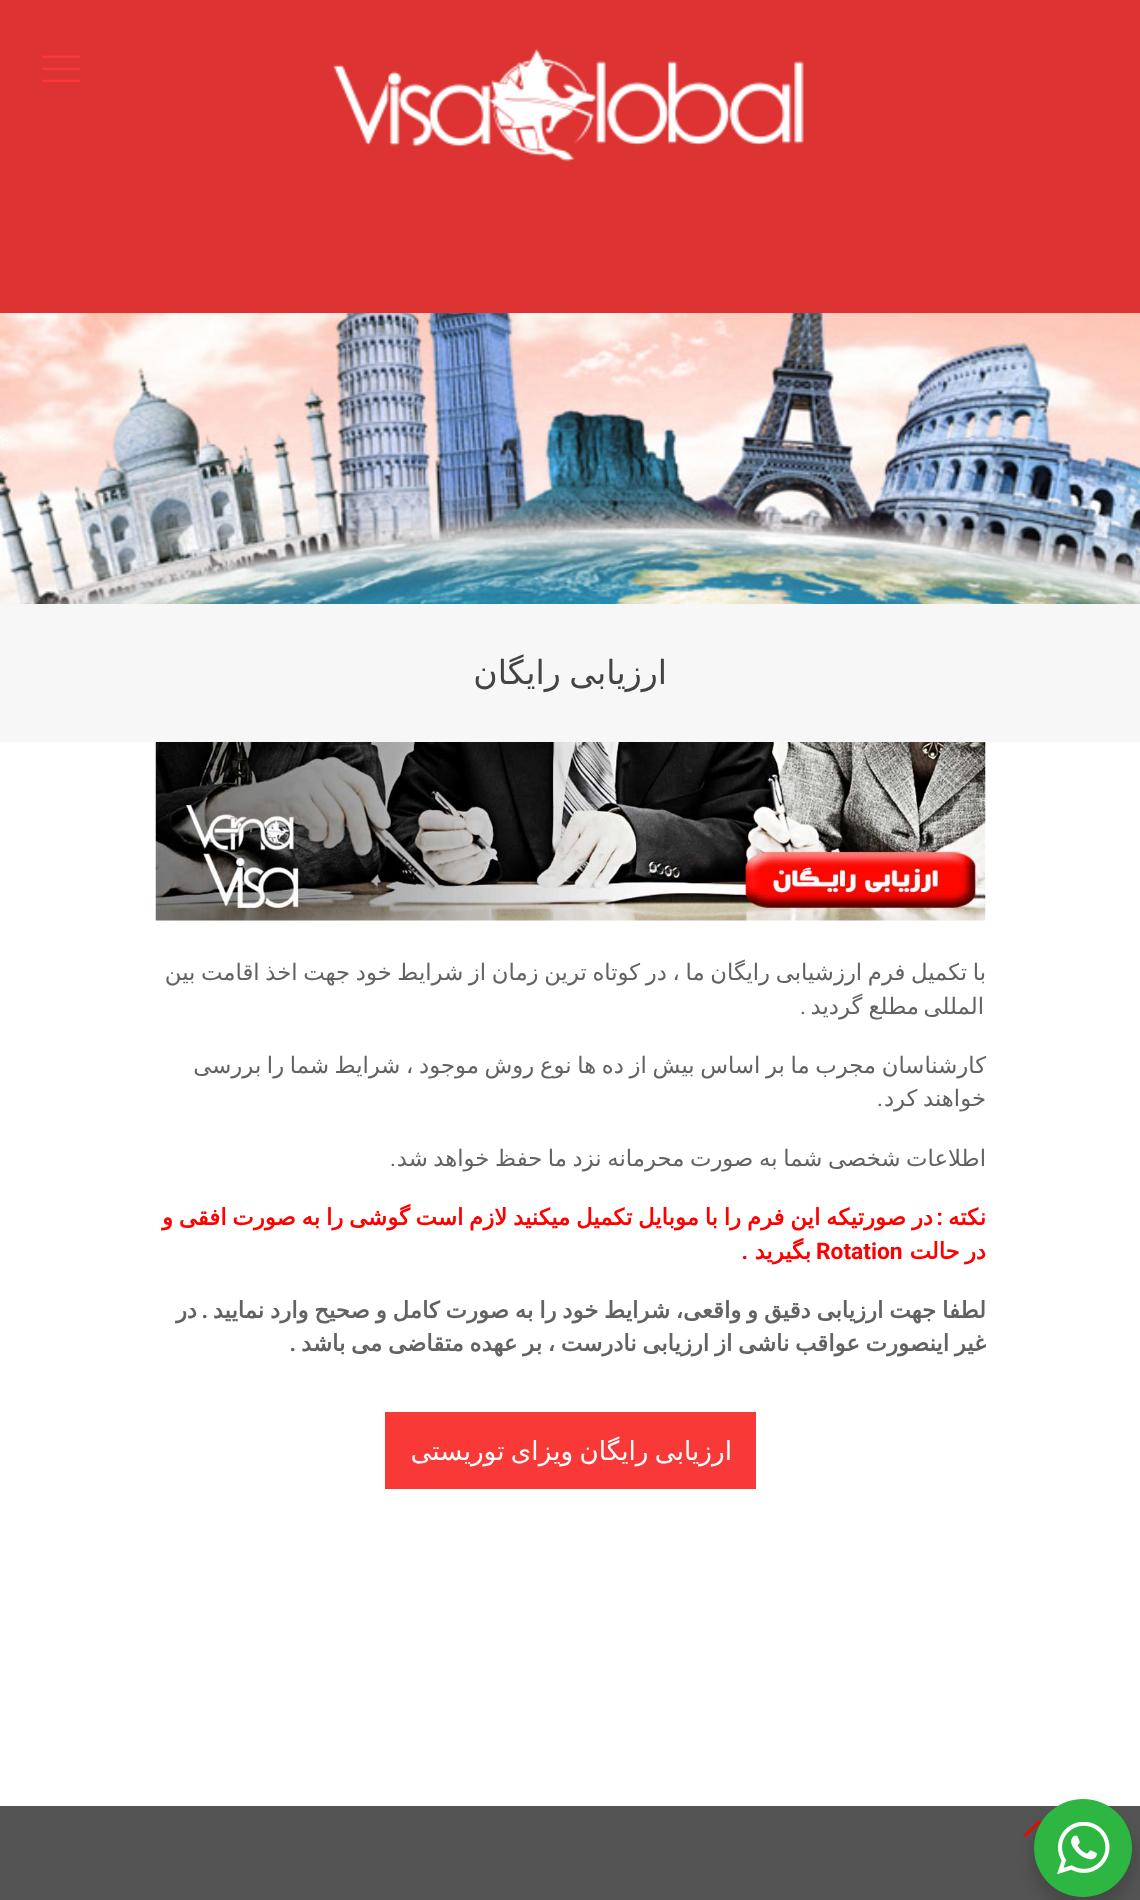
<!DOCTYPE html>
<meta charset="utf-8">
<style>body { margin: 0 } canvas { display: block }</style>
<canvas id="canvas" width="1140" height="1900"></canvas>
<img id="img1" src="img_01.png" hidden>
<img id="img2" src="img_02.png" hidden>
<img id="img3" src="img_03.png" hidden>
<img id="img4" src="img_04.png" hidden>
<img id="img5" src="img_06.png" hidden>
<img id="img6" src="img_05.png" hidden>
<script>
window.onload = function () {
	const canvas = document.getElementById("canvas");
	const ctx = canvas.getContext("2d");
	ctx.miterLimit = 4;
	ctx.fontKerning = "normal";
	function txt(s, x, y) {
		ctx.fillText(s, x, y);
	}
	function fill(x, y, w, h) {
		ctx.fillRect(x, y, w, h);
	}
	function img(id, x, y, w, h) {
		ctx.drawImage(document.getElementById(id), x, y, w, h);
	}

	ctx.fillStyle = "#FFFFFF";
	fill(0, 0, 1140, 1900);
	img("img1", 0, 313, 1140, 291);
	ctx.fillStyle = "#DD3333";
	fill(0, 0, 1140, 313);
	img("img2", 333, 48, 471, 114);
	img("img3", 42, 55, 39, 27);
	ctx.fillStyle = "#F7F7F7";
	fill(0, 604, 1140, 138);
	img("img4", 155, 742, 831, 179);
	ctx.fillStyle = "#F93838";
	fill(385, 1412, 371, 77);
	ctx.fillStyle = "#545454";
	fill(0, 1806, 1140, 94);
	img("img5", 1023, 1820, 19, 17);
	ctx.fillStyle = "rgba(0, 0, 0, 0.14)";
	ctx.filter = "blur(7px)";
	ctx.beginPath();
	ctx.roundRect(1031, 1806, 105, 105, 52.5);
	ctx.fill();
	ctx.filter = "none";
	ctx.fillStyle = "#2DB742";
	ctx.beginPath();
	ctx.arc(1083, 1848, 49, 0, Math.PI * 2);
	ctx.fill();
	img("img6", 1057, 1822, 53, 52);
	ctx.wordSpacing = "-2px";
	ctx.direction = "rtl";
	ctx.font = "33.25px DejaVu Sans";
	ctx.fillStyle = "#444444";
	txt("ارزیابی رایگان", 667, 684);
	ctx.wordSpacing = "-1.6px";
	ctx.font = "22.75px DejaVu Sans";
	ctx.fillStyle = "#626262";
	txt("با تکمیل فرم ارزشیابی رایگان ما ، در کوتاه ترین زمان از شرایط خود جهت اخذ اقامت بین", 986, 980);
	ctx.wordSpacing = "0px";
	txt("المللی", 984, 1014);
	ctx.wordSpacing = "-1px";
	txt("مطلع گردید", 919, 1014);
	ctx.wordSpacing = "0px";
	ctx.font = "22.75px Roboto";
	txt(".", 806, 1014);
	ctx.wordSpacing = "-1.6px";
	ctx.font = "22.75px DejaVu Sans";
	txt("کارشناسان مجرب ما بر اساس بیش از ده ها نوع روش موجود ، شرایط شما را بررسی", 986, 1073);
	txt("خواهند کرد", 986, 1106);
	ctx.wordSpacing = "0px";
	ctx.font = "22.75px Roboto";
	txt(".", 883, 1106);
	ctx.wordSpacing = "-1.6px";
	ctx.font = "22.75px DejaVu Sans";
	txt("اطلاعات شخصی شما به صورت محرمانه نزد ما حفظ خواهد شد", 986, 1166);
	ctx.wordSpacing = "0px";
	ctx.font = "22.75px Roboto";
	txt(".", 396, 1166);
	ctx.font = "bold 22.75px DejaVu Sans";
	ctx.fillStyle = "#FF0000";
	txt("نکته", 986, 1225);
	ctx.wordSpacing = "-1.4px";
	txt("در صورتیکه این فرم را با موبایل تکمیل میکنید لازم است گوشی را به صورت افقی و", 933, 1225);
	ctx.wordSpacing = "0px";
	ctx.font = "bold 22.75px Roboto";
	txt(":", 943, 1225);
	ctx.wordSpacing = "-2px";
	ctx.font = "bold 22.75px DejaVu Sans";
	txt("در حالت", 986, 1259);
	ctx.wordSpacing = "0px";
	ctx.direction = "ltr";
	ctx.font = "bold 22.75px Roboto";
	txt("Rotation", 816, 1259);
	ctx.direction = "rtl";
	ctx.font = "bold 22.75px DejaVu Sans";
	txt("بگیرید", 811, 1259);
	ctx.font = "bold 22.75px Roboto";
	txt(".", 748, 1259);
	ctx.wordSpacing = "-1.4px";
	ctx.font = "bold 22.75px DejaVu Sans";
	ctx.fillStyle = "#626262";
	txt("لطفا جهت ارزیابی دقیق و واقعی، شرایط خود را به صورت کامل و صحیح وارد نمایید", 986, 1318);
	ctx.wordSpacing = "0px";
	ctx.font = "bold 22.75px Roboto";
	txt(".", 208, 1318);
	ctx.font = "bold 22.75px DejaVu Sans";
	txt("در", 197, 1318);
	ctx.wordSpacing = "-1.5px";
	txt("غیر اینصورت عواقب ناشی از ارزیابی نادرست ، بر عهده متقاضی می باشد", 986, 1351);
	ctx.wordSpacing = "0px";
	ctx.font = "bold 22.75px Roboto";
	txt(".", 296, 1351);
	ctx.wordSpacing = "-2px";
	ctx.font = "26.25px DejaVu Sans";
	ctx.fillStyle = "#FFFFFF";
	txt("ارزیابی رایگان ویزای توریستی", 732, 1460);
};
</script>
